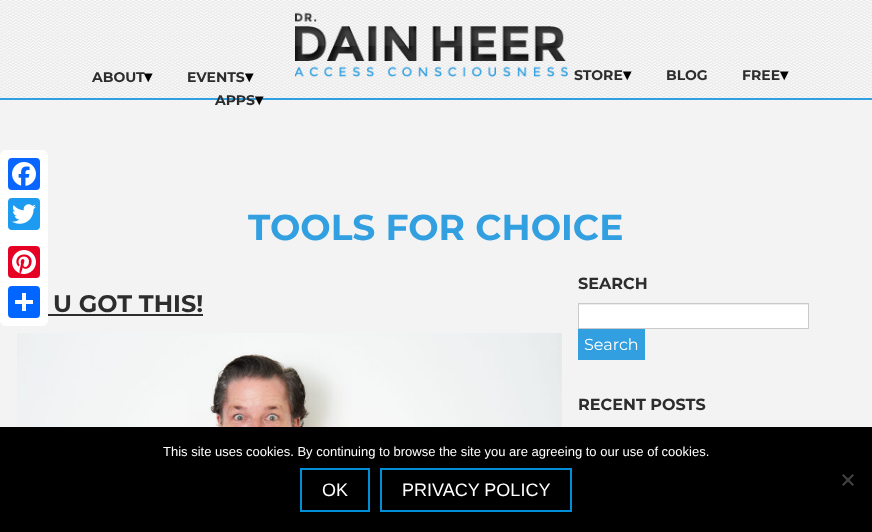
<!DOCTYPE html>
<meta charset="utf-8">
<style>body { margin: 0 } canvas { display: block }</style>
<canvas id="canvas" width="872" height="532"></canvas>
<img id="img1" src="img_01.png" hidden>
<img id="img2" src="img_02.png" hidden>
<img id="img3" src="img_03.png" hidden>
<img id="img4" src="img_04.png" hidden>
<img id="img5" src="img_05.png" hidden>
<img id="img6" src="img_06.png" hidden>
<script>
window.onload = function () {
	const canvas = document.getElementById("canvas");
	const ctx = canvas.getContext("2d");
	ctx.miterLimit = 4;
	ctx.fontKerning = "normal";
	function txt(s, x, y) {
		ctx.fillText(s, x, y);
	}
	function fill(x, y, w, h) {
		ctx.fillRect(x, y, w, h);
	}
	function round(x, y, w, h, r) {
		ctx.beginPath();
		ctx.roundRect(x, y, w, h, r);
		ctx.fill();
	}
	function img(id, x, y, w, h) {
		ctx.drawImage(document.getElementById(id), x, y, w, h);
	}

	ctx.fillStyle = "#F3F3F3";
	fill(0, 0, 872, 532);
	img("img1", 0, 0, 872, 98);
	ctx.fillStyle = "#319FE0";
	fill(0, 98, 872, 2);
	img("img2", 295, 12, 273, 65);
	ctx.fillStyle = "#FFFFFF";
	round(0, 150, 48, 176, 6);
	ctx.fillStyle = "#0866FF";
	round(8, 158, 32, 32, 4);
	img("img3", 12, 162, 24, 24);
	ctx.fillStyle = "#1D9BF0";
	round(8, 198, 32, 32, 4);
	img("img4", 12, 204, 24, 20);
	ctx.fillStyle = "#E60023";
	round(8, 246, 32, 32, 4);
	img("img5", 12, 250, 24, 24);
	ctx.fillStyle = "#0166FF";
	round(8, 286, 32, 32, 4);
	ctx.fillStyle = "#FFFFFF";
	fill(22, 293, 4, 18);
	fill(15, 300, 18, 4);
	ctx.fillStyle = "#2D2D2D";
	fill(48, 314, 155, 2);
	img("img6", 17, 333, 545, 94);
	ctx.fillStyle = "#FFFFFF";
	fill(579, 305, 229, 23);
	ctx.fillStyle = "#ECECEC";
	fill(579, 304, 229, 1);
	ctx.strokeStyle = "#CACACA";
	ctx.strokeRect(578.5, 303.5, 230, 25);
	ctx.fillStyle = "#319FE0";
	fill(578, 329, 67, 31);
	ctx.fillStyle = "#000000";
	fill(0, 427, 872, 105);
	ctx.fillStyle = "#404040";
	ctx.beginPath();
	ctx.moveTo(852.5, 474);
	ctx.lineTo(854, 475.5);
	ctx.lineTo(843.5, 486);
	ctx.lineTo(842, 484.5);
	ctx.closePath();
	ctx.fill();
	ctx.beginPath();
	ctx.moveTo(842, 475.5);
	ctx.lineTo(843.5, 474);
	ctx.lineTo(854, 484.5);
	ctx.lineTo(852.5, 486);
	ctx.closePath();
	ctx.fill();
	ctx.strokeStyle = "#008ED6";
	ctx.lineWidth = 2;
	ctx.strokeRect(301, 469, 68, 42);
	ctx.strokeRect(381, 469, 190, 42);
	ctx.font = "bold 14px Montserrat";
	ctx.fillStyle = "#2D2D2D";
	txt("ABOUT", 92, 82);
	ctx.font = "bold 16px DejaVu Sans";
	ctx.fillStyle = "#000000";
	txt("▾", 144, 82);
	ctx.font = "bold 14px Montserrat";
	ctx.fillStyle = "#2D2D2D";
	txt("EVENTS", 187, 82);
	ctx.font = "bold 16px DejaVu Sans";
	ctx.fillStyle = "#000000";
	txt("▾", 245, 82);
	ctx.font = "bold 14px Montserrat";
	ctx.fillStyle = "#2D2D2D";
	txt("APPS", 215, 105);
	ctx.font = "bold 16px DejaVu Sans";
	ctx.fillStyle = "#000000";
	txt("▾", 255, 105);
	ctx.font = "bold 14px Montserrat";
	ctx.fillStyle = "#2D2D2D";
	txt("STORE", 574, 80);
	ctx.font = "bold 16px DejaVu Sans";
	ctx.fillStyle = "#000000";
	txt("▾", 623, 80);
	ctx.font = "bold 14px Montserrat";
	ctx.fillStyle = "#2D2D2D";
	txt("BLOG", 666, 80);
	txt("FREE", 742, 80);
	ctx.font = "bold 16px DejaVu Sans";
	ctx.fillStyle = "#000000";
	txt("▾", 780, 80);
	ctx.font = "bold 36px Montserrat";
	ctx.fillStyle = "#319FE0";
	txt("TOOLS FOR CHOICE", 248, 240);
	ctx.font = "bold 24px Montserrat";
	ctx.fillStyle = "#2D2D2D";
	txt("U GOT THIS!", 53, 312);
	ctx.font = "bold 16px Montserrat";
	txt("SEARCH", 578, 289);
	ctx.font = "16px Montserrat";
	ctx.fillStyle = "#FFFFFF";
	txt("Search", 584, 350);
	ctx.font = "bold 16px Montserrat";
	ctx.fillStyle = "#2D2D2D";
	txt("RECENT POSTS", 578, 410);
	ctx.font = "13px Liberation Sans";
	ctx.fillStyle = "#FFFFFF";
	txt("This site uses cookies. By continuing to browse the site you are agreeing to our use of cookies.", 163, 456);
	ctx.font = "18px Liberation Sans";
	txt("OK", 322, 496);
	txt("PRIVACY POLICY", 402, 496);
};
</script>
